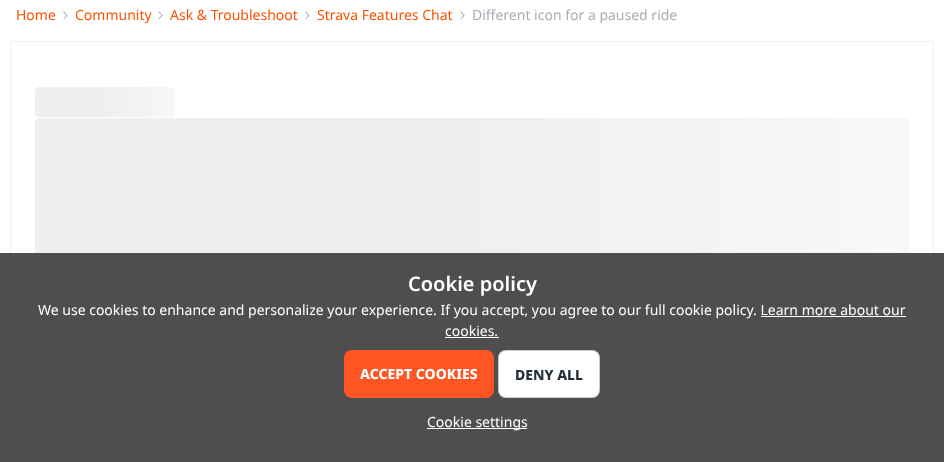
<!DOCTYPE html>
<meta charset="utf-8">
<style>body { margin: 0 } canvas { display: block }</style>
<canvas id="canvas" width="944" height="462"></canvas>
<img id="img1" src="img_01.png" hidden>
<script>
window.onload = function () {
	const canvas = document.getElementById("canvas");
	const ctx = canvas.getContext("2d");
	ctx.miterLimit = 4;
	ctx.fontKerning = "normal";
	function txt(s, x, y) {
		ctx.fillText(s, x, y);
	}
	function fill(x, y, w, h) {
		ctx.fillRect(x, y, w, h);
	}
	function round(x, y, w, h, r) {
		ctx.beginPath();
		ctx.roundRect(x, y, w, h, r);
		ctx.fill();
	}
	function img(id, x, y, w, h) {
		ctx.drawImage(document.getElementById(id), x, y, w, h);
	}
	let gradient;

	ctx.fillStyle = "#FFFFFF";
	fill(0, 0, 944, 462);
	img("img1", 63, 11, 5, 9);
	img("img1", 158, 11, 5, 9);
	img("img1", 305, 11, 5, 9);
	img("img1", 460, 11, 5, 9);
	ctx.strokeStyle = "#F1F1F1";
	ctx.strokeRect(10.5, 41.5, 923, 402);
	gradient = ctx.createLinearGradient(35, 102, 315, 102);
	gradient.addColorStop(0.25, "#EEEFF0");
	gradient.addColorStop(0.5, "#F7F7F8");
	gradient.addColorStop(0.75, "#EEEFF0");
	ctx.fillStyle = gradient;
	round(35, 87, 140, 30, 4);
	gradient = ctx.createLinearGradient(35, 268, 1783, 268);
	gradient.addColorStop(0.25, "#EFEFF1");
	gradient.addColorStop(0.5, "#F7F8F8");
	gradient.addColorStop(0.75, "#EFEFF1");
	ctx.fillStyle = gradient;
	round(35, 118, 874, 300, 4);
	ctx.fillStyle = "rgba(60, 60, 60, 0.9)";
	fill(0, 253, 944, 209);
	ctx.fillStyle = "#FFFFFF";
	fill(761, 316, 145, 1);
	fill(445, 337, 54, 1);
	ctx.fillStyle = "#FF5522";
	round(344, 350, 150, 48, 8);
	ctx.fillStyle = "#FFFFFF";
	round(498, 350, 102, 48, 8);
	ctx.beginPath();
	ctx.roundRect(498.5, 350.5, 101, 47, 7.5);
	ctx.strokeStyle = "rgba(0, 0, 0, 0.2)";
	ctx.stroke();
	fill(427, 428, 100, 1);
	ctx.font = "14px Noto Sans";
	ctx.fillStyle = "#FC5200";
	txt("Home", 16, 20);
	txt("Community", 75, 20);
	txt("Ask & Troubleshoot", 170, 20);
	txt("Strava Features Chat", 317, 20);
	ctx.fillStyle = "#A7AEB5";
	txt("Different icon for a paused ride", 472, 20);
	ctx.font = "600 20px Noto Sans";
	ctx.fillStyle = "#FFFFFF";
	txt("Cookie policy", 408, 291);
	ctx.font = "14px Noto Sans";
	txt("We use cookies to enhance and personalize your experience. If you accept, you agree to our full cookie policy. Learn more about our", 38, 315);
	txt("cookies.", 445, 336);
	ctx.font = "800 14px Noto Sans";
	txt("ACCEPT COOKIES", 360, 379);
	ctx.fillStyle = "#25313B";
	txt("DENY ALL", 515, 380);
	ctx.font = "14px Noto Sans";
	ctx.fillStyle = "#FFFFFF";
	txt("Cookie settings", 427, 427);
};
</script>
